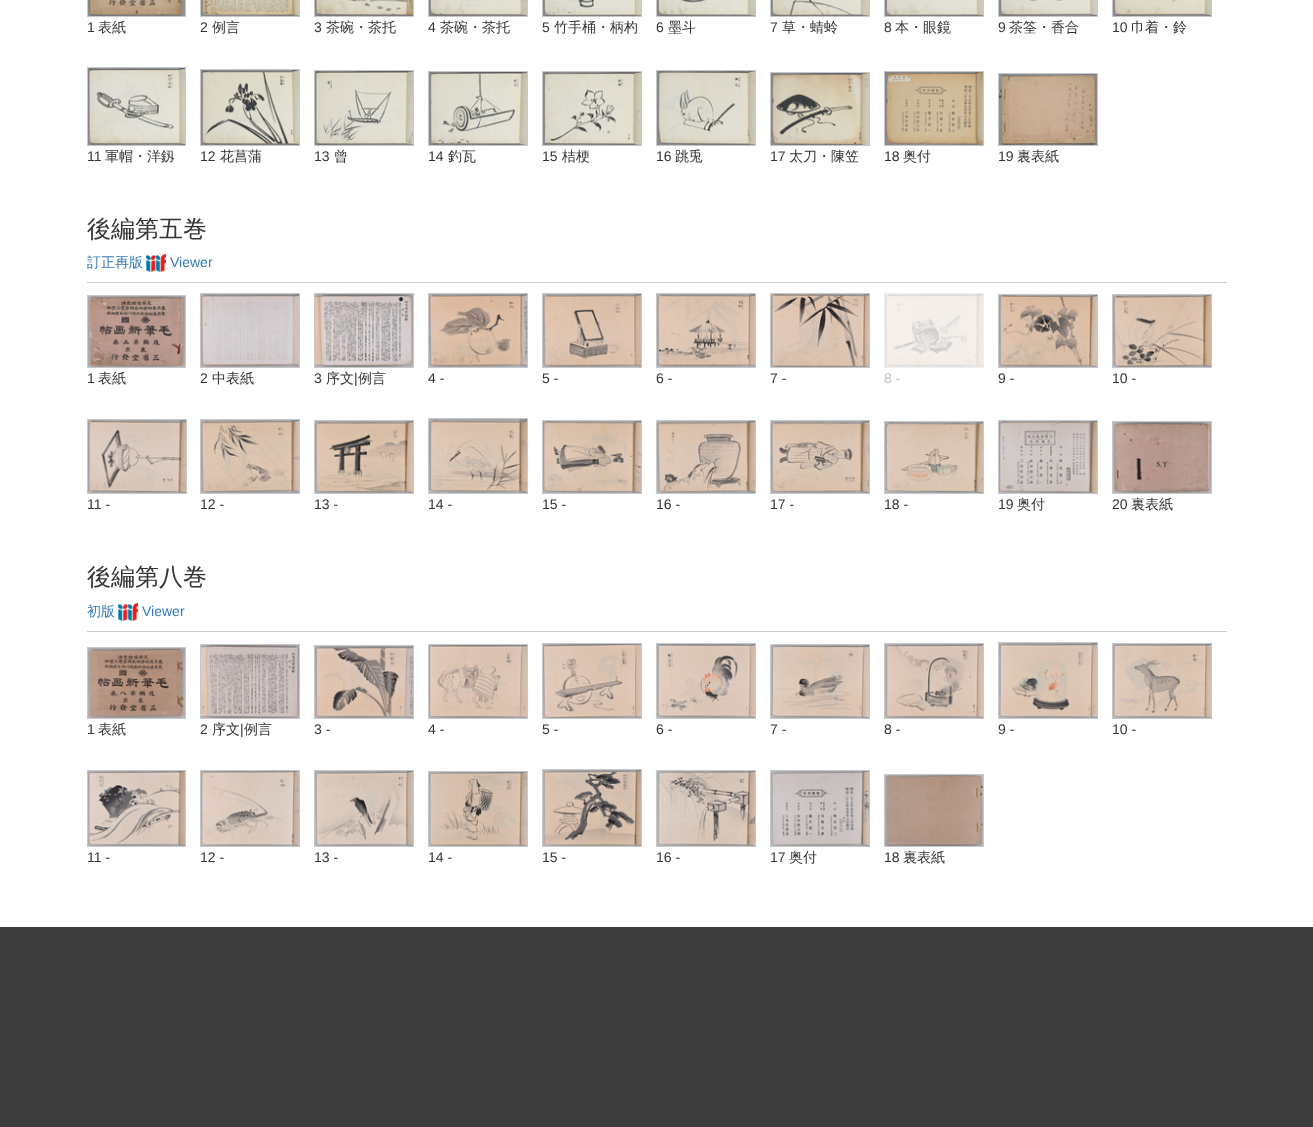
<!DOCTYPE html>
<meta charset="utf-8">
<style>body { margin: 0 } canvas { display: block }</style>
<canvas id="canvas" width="1313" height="1127"></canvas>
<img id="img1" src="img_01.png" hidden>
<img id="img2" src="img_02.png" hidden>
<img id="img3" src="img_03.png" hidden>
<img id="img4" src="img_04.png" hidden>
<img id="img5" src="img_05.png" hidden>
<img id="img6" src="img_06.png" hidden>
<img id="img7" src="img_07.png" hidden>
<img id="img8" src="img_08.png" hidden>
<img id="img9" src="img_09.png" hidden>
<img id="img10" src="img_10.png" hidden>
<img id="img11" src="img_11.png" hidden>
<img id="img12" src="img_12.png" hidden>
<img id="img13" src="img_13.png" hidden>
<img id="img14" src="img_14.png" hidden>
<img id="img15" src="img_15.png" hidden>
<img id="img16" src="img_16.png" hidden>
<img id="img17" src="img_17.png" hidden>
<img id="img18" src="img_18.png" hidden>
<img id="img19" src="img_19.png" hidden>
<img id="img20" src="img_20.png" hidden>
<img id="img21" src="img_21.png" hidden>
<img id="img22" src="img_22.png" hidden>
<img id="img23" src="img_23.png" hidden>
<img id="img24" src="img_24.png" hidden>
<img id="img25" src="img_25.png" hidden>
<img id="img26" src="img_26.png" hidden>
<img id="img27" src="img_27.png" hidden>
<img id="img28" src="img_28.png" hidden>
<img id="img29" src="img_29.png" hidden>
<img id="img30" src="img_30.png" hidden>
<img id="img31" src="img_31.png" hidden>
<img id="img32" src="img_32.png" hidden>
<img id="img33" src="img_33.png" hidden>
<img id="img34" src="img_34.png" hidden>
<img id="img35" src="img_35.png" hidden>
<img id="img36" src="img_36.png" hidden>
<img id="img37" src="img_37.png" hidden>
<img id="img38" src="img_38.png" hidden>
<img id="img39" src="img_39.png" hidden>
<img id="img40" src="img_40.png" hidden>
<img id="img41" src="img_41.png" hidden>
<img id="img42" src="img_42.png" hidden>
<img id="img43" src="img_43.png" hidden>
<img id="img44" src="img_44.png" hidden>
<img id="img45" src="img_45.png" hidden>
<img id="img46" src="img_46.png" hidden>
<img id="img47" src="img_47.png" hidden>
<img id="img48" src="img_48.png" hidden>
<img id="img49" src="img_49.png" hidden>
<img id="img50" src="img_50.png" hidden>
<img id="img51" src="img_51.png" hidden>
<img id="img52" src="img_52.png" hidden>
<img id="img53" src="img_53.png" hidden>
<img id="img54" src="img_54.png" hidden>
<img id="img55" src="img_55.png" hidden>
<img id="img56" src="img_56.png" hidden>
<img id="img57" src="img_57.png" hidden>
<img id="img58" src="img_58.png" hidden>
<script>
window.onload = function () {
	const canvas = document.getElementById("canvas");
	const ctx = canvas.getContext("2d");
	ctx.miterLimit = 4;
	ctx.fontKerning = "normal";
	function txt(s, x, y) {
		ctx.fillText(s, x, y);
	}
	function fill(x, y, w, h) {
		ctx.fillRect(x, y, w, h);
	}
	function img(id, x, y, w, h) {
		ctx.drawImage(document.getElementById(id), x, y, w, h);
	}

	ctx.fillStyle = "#3D3D3D";
	fill(0, 0, 1313, 1127);
	ctx.fillStyle = "#FFFFFF";
	fill(0, 0, 1313, 927);
	ctx.strokeStyle = "#C5C8CA";
	ctx.strokeRect(87.5, -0.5, 98, 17);
	img("img1", 88, 0, 97, 16);
	ctx.strokeRect(200.5, -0.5, 99, 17);
	img("img2", 201, 0, 98, 16);
	ctx.strokeRect(314.5, -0.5, 99, 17);
	img("img3", 315, 0, 98, 16);
	ctx.strokeRect(428.5, -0.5, 99, 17);
	img("img4", 429, 0, 98, 16);
	ctx.strokeRect(542.5, -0.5, 99, 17);
	img("img5", 543, 0, 98, 16);
	ctx.strokeRect(656.5, -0.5, 99, 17);
	img("img6", 657, 0, 98, 16);
	ctx.strokeRect(770.5, -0.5, 99, 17);
	img("img7", 771, 0, 98, 16);
	ctx.strokeRect(884.5, -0.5, 99, 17);
	img("img8", 885, 0, 98, 16);
	ctx.strokeRect(998.5, -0.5, 99, 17);
	img("img9", 999, 0, 98, 16);
	ctx.strokeRect(1112.5, -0.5, 99, 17);
	img("img10", 1113, 0, 98, 16);
	ctx.strokeRect(87.5, 67.5, 98, 78);
	img("img11", 88, 68, 97, 77);
	ctx.strokeRect(200.5, 69.5, 99, 76);
	img("img12", 201, 70, 98, 75);
	ctx.strokeRect(314.5, 70.5, 99, 75);
	img("img13", 315, 71, 98, 74);
	ctx.strokeRect(428.5, 71.5, 99, 74);
	img("img14", 429, 72, 98, 73);
	ctx.strokeRect(542.5, 71.5, 99, 74);
	img("img15", 543, 72, 98, 73);
	ctx.strokeRect(656.5, 70.5, 99, 75);
	img("img16", 657, 71, 98, 74);
	ctx.strokeRect(770.5, 72.5, 99, 73);
	img("img17", 771, 73, 98, 72);
	ctx.strokeRect(884.5, 71.5, 99, 74);
	img("img18", 885, 72, 98, 73);
	ctx.strokeRect(998.5, 73.5, 99, 72);
	img("img19", 999, 74, 98, 71);
	ctx.fillStyle = "#CCCCCC";
	fill(87, 282, 1140, 1);
	img("img20", 146, 254, 20, 18);
	ctx.strokeRect(87.5, 295.5, 98, 72);
	img("img21", 88, 296, 97, 71);
	ctx.strokeRect(200.5, 293.5, 99, 74);
	img("img22", 201, 294, 98, 73);
	ctx.strokeRect(314.5, 293.5, 99, 74);
	img("img23", 315, 294, 98, 73);
	ctx.strokeRect(428.5, 293.5, 99, 74);
	img("img24", 429, 294, 98, 73);
	ctx.strokeRect(542.5, 293.5, 99, 74);
	img("img25", 543, 294, 98, 73);
	ctx.strokeRect(656.5, 293.5, 99, 74);
	img("img26", 657, 294, 98, 73);
	ctx.strokeRect(770.5, 293.5, 99, 74);
	img("img27", 771, 294, 98, 73);
	ctx.strokeStyle = "#EEEFEF";
	ctx.strokeRect(884.5, 293.5, 99, 74);
	img("img28", 885, 294, 98, 73);
	ctx.strokeStyle = "#C5C8CA";
	ctx.strokeRect(998.5, 294.5, 99, 73);
	img("img29", 999, 295, 98, 72);
	ctx.strokeRect(1112.5, 294.5, 99, 73);
	img("img30", 1113, 295, 98, 72);
	ctx.strokeRect(87.5, 419.5, 99, 74);
	img("img31", 88, 420, 98, 73);
	ctx.strokeRect(200.5, 419.5, 99, 74);
	img("img32", 201, 420, 98, 73);
	ctx.strokeRect(314.5, 420.5, 99, 73);
	img("img33", 315, 421, 98, 72);
	ctx.strokeRect(428.5, 418.5, 99, 75);
	img("img34", 429, 419, 98, 74);
	ctx.strokeRect(542.5, 420.5, 99, 73);
	img("img35", 543, 421, 98, 72);
	ctx.strokeRect(656.5, 420.5, 99, 73);
	img("img36", 657, 421, 98, 72);
	ctx.strokeRect(770.5, 420.5, 99, 73);
	img("img37", 771, 421, 98, 72);
	ctx.strokeRect(884.5, 421.5, 99, 72);
	img("img38", 885, 422, 98, 71);
	ctx.strokeRect(998.5, 420.5, 99, 73);
	img("img39", 999, 421, 98, 72);
	ctx.strokeRect(1112.5, 421.5, 99, 72);
	img("img40", 1113, 422, 98, 71);
	fill(87, 631, 1140, 1);
	img("img20", 118, 603, 20, 18);
	ctx.strokeRect(87.5, 647.5, 98, 71);
	img("img41", 88, 648, 97, 70);
	ctx.strokeRect(200.5, 644.5, 99, 74);
	img("img42", 201, 645, 98, 73);
	ctx.strokeRect(314.5, 645.5, 99, 73);
	img("img43", 315, 646, 98, 72);
	ctx.strokeRect(428.5, 644.5, 99, 74);
	img("img44", 429, 645, 98, 73);
	ctx.strokeRect(542.5, 643.5, 99, 75);
	img("img45", 543, 644, 98, 74);
	ctx.strokeRect(656.5, 643.5, 99, 75);
	img("img46", 657, 644, 98, 74);
	ctx.strokeRect(770.5, 644.5, 99, 74);
	img("img47", 771, 645, 98, 73);
	ctx.strokeRect(884.5, 643.5, 99, 75);
	img("img48", 885, 644, 98, 74);
	ctx.strokeRect(998.5, 642.5, 99, 76);
	img("img49", 999, 643, 98, 75);
	ctx.strokeRect(1112.5, 643.5, 99, 75);
	img("img50", 1113, 644, 98, 74);
	ctx.strokeRect(87.5, 770.5, 98, 76);
	img("img51", 88, 771, 97, 75);
	ctx.strokeRect(200.5, 770.5, 99, 76);
	img("img52", 201, 771, 98, 75);
	ctx.strokeRect(314.5, 770.5, 99, 76);
	img("img53", 315, 771, 98, 75);
	ctx.strokeRect(428.5, 771.5, 99, 75);
	img("img54", 429, 772, 98, 74);
	ctx.strokeRect(542.5, 769.5, 99, 77);
	img("img55", 543, 770, 98, 76);
	ctx.strokeRect(656.5, 770.5, 99, 76);
	img("img56", 657, 771, 98, 75);
	ctx.strokeRect(770.5, 770.5, 99, 76);
	img("img57", 771, 771, 98, 75);
	ctx.strokeRect(884.5, 774.5, 99, 72);
	img("img58", 885, 775, 98, 71);
	ctx.font = "14px Liberation Sans";
	ctx.fillStyle = "#333333";
	txt("1", 87, 32);
	ctx.font = "500 14px WenQuanYi Zen Hei";
	txt("表紙", 98, 32);
	ctx.font = "14px Liberation Sans";
	txt("2", 200, 32);
	ctx.font = "500 14px WenQuanYi Zen Hei";
	txt("例言", 212, 32);
	ctx.font = "14px Liberation Sans";
	txt("3", 314, 32);
	ctx.font = "500 14px WenQuanYi Zen Hei";
	txt("茶碗・茶托", 326, 32);
	ctx.font = "14px Liberation Sans";
	txt("4", 428, 32);
	ctx.font = "500 14px WenQuanYi Zen Hei";
	txt("茶碗・茶托", 440, 32);
	ctx.font = "14px Liberation Sans";
	txt("5", 542, 32);
	ctx.font = "500 14px WenQuanYi Zen Hei";
	txt("竹手桶・柄杓", 554, 32);
	ctx.font = "14px Liberation Sans";
	txt("6", 656, 32);
	ctx.font = "500 14px WenQuanYi Zen Hei";
	txt("墨斗", 668, 32);
	ctx.font = "14px Liberation Sans";
	txt("7", 770, 32);
	ctx.font = "500 14px WenQuanYi Zen Hei";
	txt("草・蜻蛉", 782, 32);
	ctx.font = "14px Liberation Sans";
	txt("8", 884, 32);
	ctx.font = "500 14px WenQuanYi Zen Hei";
	txt("本・眼鏡", 895, 32);
	ctx.font = "14px Liberation Sans";
	txt("9", 998, 32);
	ctx.font = "500 14px WenQuanYi Zen Hei";
	txt("茶筌・香合", 1009, 32);
	ctx.font = "14px Liberation Sans";
	txt("10", 1112, 32);
	ctx.font = "500 14px WenQuanYi Zen Hei";
	txt("巾着・鈴", 1131, 32);
	ctx.font = "14px Liberation Sans";
	txt("11", 87, 161);
	ctx.font = "500 14px WenQuanYi Zen Hei";
	txt("軍帽・洋釼", 105, 161);
	ctx.font = "14px Liberation Sans";
	txt("12", 200, 161);
	ctx.font = "500 14px WenQuanYi Zen Hei";
	txt("花菖蒲", 220, 161);
	ctx.font = "14px Liberation Sans";
	txt("13", 314, 161);
	ctx.font = "500 14px WenQuanYi Zen Hei";
	txt("曾", 334, 161);
	ctx.font = "14px Liberation Sans";
	txt("14", 428, 161);
	ctx.font = "500 14px WenQuanYi Zen Hei";
	txt("釣瓦", 448, 161);
	ctx.font = "14px Liberation Sans";
	txt("15", 542, 161);
	ctx.font = "500 14px WenQuanYi Zen Hei";
	txt("桔梗", 562, 161);
	ctx.font = "14px Liberation Sans";
	txt("16", 656, 161);
	ctx.font = "500 14px WenQuanYi Zen Hei";
	txt("跳兎", 675, 161);
	ctx.font = "14px Liberation Sans";
	txt("17", 770, 161);
	ctx.font = "500 14px WenQuanYi Zen Hei";
	txt("太刀・陳笠", 789, 161);
	ctx.font = "14px Liberation Sans";
	txt("18", 884, 161);
	ctx.font = "500 14px WenQuanYi Zen Hei";
	txt("奥付", 903, 161);
	ctx.font = "14px Liberation Sans";
	txt("19", 998, 161);
	ctx.font = "500 14px WenQuanYi Zen Hei";
	txt("裏表紙", 1017, 161);
	ctx.font = "500 24px WenQuanYi Zen Hei";
	txt("後編第五巻", 87, 237);
	ctx.font = "500 14px WenQuanYi Zen Hei";
	ctx.fillStyle = "#337AB7";
	txt("訂正再版", 87, 267);
	ctx.font = "14px Liberation Sans";
	txt("Viewer", 170, 267);
	ctx.fillStyle = "#333333";
	txt("1", 87, 383);
	ctx.font = "500 14px WenQuanYi Zen Hei";
	txt("表紙", 98, 383);
	ctx.font = "14px Liberation Sans";
	txt("2", 200, 383);
	ctx.font = "500 14px WenQuanYi Zen Hei";
	txt("中表紙", 212, 383);
	ctx.font = "14px Liberation Sans";
	txt("3", 314, 383);
	ctx.font = "500 14px WenQuanYi Zen Hei";
	txt("序文", 326, 383);
	ctx.font = "14px Liberation Sans";
	txt("|", 354, 383);
	ctx.font = "500 14px WenQuanYi Zen Hei";
	txt("例言", 358, 383);
	ctx.font = "14px Liberation Sans";
	txt("4 -", 428, 383);
	txt("5 -", 542, 383);
	txt("6 -", 656, 383);
	txt("7 -", 770, 383);
	ctx.fillStyle = "#C2C2C2";
	txt("8 -", 884, 383);
	ctx.fillStyle = "#333333";
	txt("9 -", 998, 383);
	txt("10 -", 1112, 383);
	txt("11 -", 87, 509);
	txt("12 -", 200, 509);
	txt("13 -", 314, 509);
	txt("14 -", 428, 509);
	txt("15 -", 542, 509);
	txt("16 -", 656, 509);
	txt("17 -", 770, 509);
	txt("18 -", 884, 509);
	txt("19", 998, 509);
	ctx.font = "500 14px WenQuanYi Zen Hei";
	txt("奥付", 1017, 509);
	ctx.font = "14px Liberation Sans";
	txt("20", 1112, 509);
	ctx.font = "500 14px WenQuanYi Zen Hei";
	txt("裏表紙", 1131, 509);
	ctx.font = "500 24px WenQuanYi Zen Hei";
	txt("後編第八巻", 87, 585);
	ctx.font = "500 14px WenQuanYi Zen Hei";
	ctx.fillStyle = "#337AB7";
	txt("初版", 87, 616);
	ctx.font = "14px Liberation Sans";
	txt("Viewer", 142, 616);
	ctx.fillStyle = "#333333";
	txt("1", 87, 734);
	ctx.font = "500 14px WenQuanYi Zen Hei";
	txt("表紙", 98, 734);
	ctx.font = "14px Liberation Sans";
	txt("2", 200, 734);
	ctx.font = "500 14px WenQuanYi Zen Hei";
	txt("序文", 212, 734);
	ctx.font = "14px Liberation Sans";
	txt("|", 240, 734);
	ctx.font = "500 14px WenQuanYi Zen Hei";
	txt("例言", 244, 734);
	ctx.font = "14px Liberation Sans";
	txt("3 -", 314, 734);
	txt("4 -", 428, 734);
	txt("5 -", 542, 734);
	txt("6 -", 656, 734);
	txt("7 -", 770, 734);
	txt("8 -", 884, 734);
	txt("9 -", 998, 734);
	txt("10 -", 1112, 734);
	txt("11 -", 87, 862);
	txt("12 -", 200, 862);
	txt("13 -", 314, 862);
	txt("14 -", 428, 862);
	txt("15 -", 542, 862);
	txt("16 -", 656, 862);
	txt("17", 770, 862);
	ctx.font = "500 14px WenQuanYi Zen Hei";
	txt("奥付", 789, 862);
	ctx.font = "14px Liberation Sans";
	txt("18", 884, 862);
	ctx.font = "500 14px WenQuanYi Zen Hei";
	txt("裏表紙", 903, 862);
};
</script>
